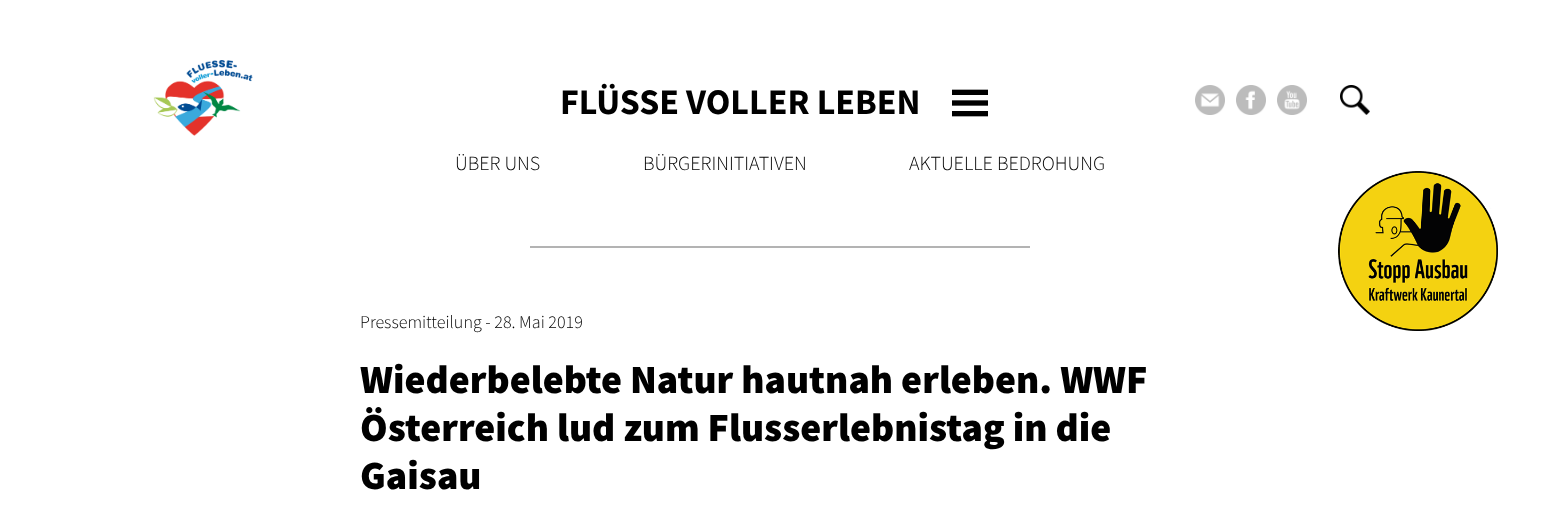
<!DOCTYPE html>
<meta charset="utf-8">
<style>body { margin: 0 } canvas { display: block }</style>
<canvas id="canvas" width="1560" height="521"></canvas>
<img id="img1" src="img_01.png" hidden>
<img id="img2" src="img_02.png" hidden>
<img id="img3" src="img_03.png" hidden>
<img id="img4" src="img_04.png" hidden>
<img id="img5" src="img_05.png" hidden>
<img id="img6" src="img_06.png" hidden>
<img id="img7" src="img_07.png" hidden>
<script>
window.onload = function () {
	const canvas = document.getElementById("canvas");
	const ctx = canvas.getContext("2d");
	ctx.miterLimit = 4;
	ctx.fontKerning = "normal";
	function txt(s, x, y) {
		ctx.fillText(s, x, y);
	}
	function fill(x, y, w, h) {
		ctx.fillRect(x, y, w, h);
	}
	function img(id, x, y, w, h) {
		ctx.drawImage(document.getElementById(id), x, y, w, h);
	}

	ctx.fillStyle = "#FFFFFF";
	fill(0, 0, 1560, 521);
	img("img1", 153, 60, 100, 76);
	img("img2", 952, 89, 36, 28);
	img("img3", 1195, 85, 30, 30);
	img("img4", 1236, 85, 30, 30);
	img("img5", 1277, 85, 30, 30);
	img("img6", 1340, 85, 30, 30);
	img("img7", 1338, 171, 160, 160);
	ctx.fillStyle = "#B3B3B3";
	fill(530, 246, 500, 2);
	ctx.font = "bold 36px Source Sans Pro";
	ctx.fillStyle = "#000000";
	txt("FLÜSSE VOLLER LEBEN", 560, 114);
	ctx.font = "300 20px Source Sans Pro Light";
	txt("ÜBER UNS", 455, 170);
	txt("BÜRGERINITIATIVEN", 643, 170);
	txt("AKTUELLE BEDROHUNG", 909, 170);
	ctx.font = "300 18px Source Sans Pro Light";
	txt("Pressemitteilung - 28. Mai 2019", 360, 328);
	ctx.font = "900 40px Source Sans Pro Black";
	txt("Wiederbelebte Natur hautnah erleben. WWF", 360, 393);
	txt("Österreich lud zum Flusserlebnistag in die", 360, 441);
	txt("Gaisau", 360, 489);
};
</script>
